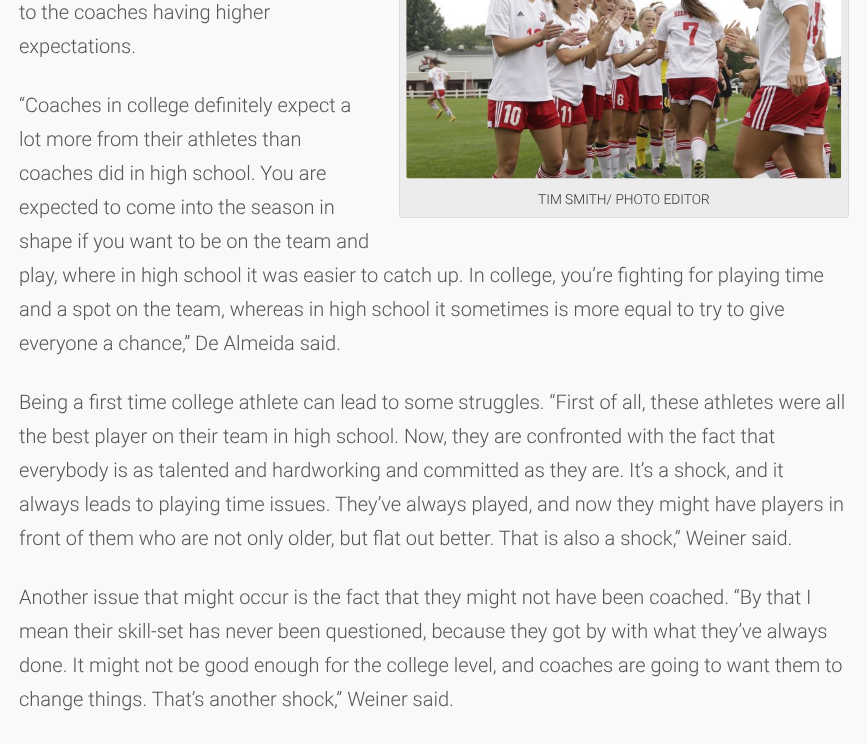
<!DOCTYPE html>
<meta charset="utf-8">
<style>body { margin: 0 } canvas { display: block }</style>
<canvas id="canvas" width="867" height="744"></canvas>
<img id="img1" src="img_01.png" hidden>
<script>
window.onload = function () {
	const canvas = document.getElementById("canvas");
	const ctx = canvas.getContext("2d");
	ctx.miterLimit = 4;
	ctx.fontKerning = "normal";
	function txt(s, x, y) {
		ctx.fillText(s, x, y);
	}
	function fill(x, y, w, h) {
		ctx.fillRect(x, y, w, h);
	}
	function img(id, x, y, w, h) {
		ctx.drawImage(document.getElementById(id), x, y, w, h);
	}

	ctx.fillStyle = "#F9F9F9";
	fill(0, 0, 867, 744);
	ctx.fillStyle = "#ECECEC";
	ctx.beginPath();
	ctx.roundRect(399.5, -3.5, 449, 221, 2);
	ctx.fill();
	ctx.strokeStyle = "#DDDDDD";
	ctx.stroke();
	img("img1", 406, 0, 436, 179);
	ctx.font = "300 20px Roboto";
	ctx.fillStyle = "#555555";
	txt("to the coaches having higher", 19, 19);
	txt("expectations.", 19, 53);
	txt("“Coaches in college definitely expect a", 19, 112);
	txt("lot more from their athletes than", 19, 146);
	txt("coaches did in high school. You are", 19, 180);
	txt("expected to come into the season in", 19, 214);
	txt("shape if you want to be on the team and", 19, 248);
	txt("play, where in high school it was easier to catch up. In college, you’re fighting for playing time", 19, 282);
	txt("and a spot on the team, whereas in high school it sometimes is more equal to try to give", 19, 316);
	txt("everyone a chance,” De Almeida said.", 19, 350);
	ctx.font = "300 13.75px Roboto";
	ctx.fillStyle = "#333333";
	txt("TIM SMITH/ PHOTO EDITOR", 538, 204);
	ctx.font = "300 20px Roboto";
	ctx.fillStyle = "#555555";
	txt("Being a first time college athlete can lead to some struggles. “First of all, these athletes were all", 19, 409);
	txt("the best player on their team in high school. Now, they are confronted with the fact that", 19, 443);
	txt("everybody is as talented and hardworking and committed as they are. It’s a shock, and it", 19, 477);
	txt("always leads to playing time issues. They’ve always played, and now they might have players in", 19, 511);
	txt("front of them who are not only older, but flat out better. That is also a shock,” Weiner said.", 19, 545);
	txt("Another issue that might occur is the fact that they might not have been coached. “By that I", 19, 604);
	txt("mean their skill-set has never been questioned, because they got by with what they’ve always", 19, 638);
	txt("done. It might not be good enough for the college level, and coaches are going to want them to", 19, 672);
	txt("change things. That’s another shock,” Weiner said.", 19, 706);
};
</script>
